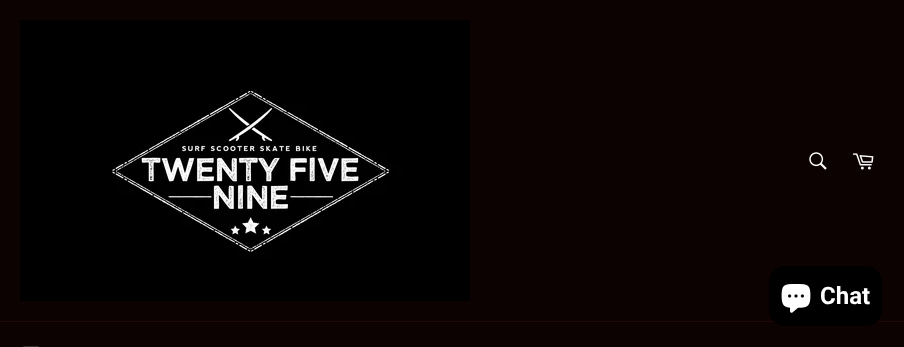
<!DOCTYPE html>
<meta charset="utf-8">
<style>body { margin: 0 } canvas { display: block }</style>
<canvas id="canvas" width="904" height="347"></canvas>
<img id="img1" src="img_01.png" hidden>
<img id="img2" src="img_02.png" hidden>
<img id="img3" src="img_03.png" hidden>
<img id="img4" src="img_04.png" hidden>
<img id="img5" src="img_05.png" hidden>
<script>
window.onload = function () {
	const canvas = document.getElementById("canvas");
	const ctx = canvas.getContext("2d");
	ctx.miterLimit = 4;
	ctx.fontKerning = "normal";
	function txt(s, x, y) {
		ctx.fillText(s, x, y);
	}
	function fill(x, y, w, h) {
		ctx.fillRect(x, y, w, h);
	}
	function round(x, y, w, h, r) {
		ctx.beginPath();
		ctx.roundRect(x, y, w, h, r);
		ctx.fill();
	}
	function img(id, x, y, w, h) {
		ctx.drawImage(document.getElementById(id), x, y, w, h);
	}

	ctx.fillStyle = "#0D0202";
	fill(0, 0, 904, 347);
	img("img1", 20, 20, 450, 281);
	img("img2", 809, 152, 18, 18);
	img("img3", 852, 153, 22, 17);
	ctx.fillStyle = "#230505";
	fill(0, 321, 904, 1);
	img("img4", 23, 346, 16, 1);
	ctx.fillStyle = "#000000";
	round(769, 266, 113, 60, 16);
	img("img5", 781, 284, 30, 29);
	ctx.font = "bold 24px Roboto";
	ctx.fillStyle = "#FFFFFF";
	txt("Chat", 820, 304);
};
</script>
